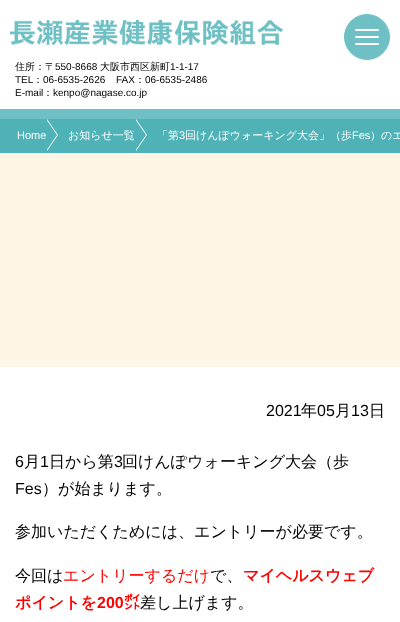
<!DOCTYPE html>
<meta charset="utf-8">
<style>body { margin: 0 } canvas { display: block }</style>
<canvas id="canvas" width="400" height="622"></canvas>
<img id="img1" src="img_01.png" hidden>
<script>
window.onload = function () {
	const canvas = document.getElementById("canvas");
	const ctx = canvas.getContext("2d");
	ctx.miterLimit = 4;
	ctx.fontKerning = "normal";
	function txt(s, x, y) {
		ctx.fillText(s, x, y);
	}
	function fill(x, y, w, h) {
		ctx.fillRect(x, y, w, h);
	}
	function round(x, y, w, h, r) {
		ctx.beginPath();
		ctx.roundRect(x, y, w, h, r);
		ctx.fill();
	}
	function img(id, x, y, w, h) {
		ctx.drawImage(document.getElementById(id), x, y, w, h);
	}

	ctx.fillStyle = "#FDF6E6";
	fill(0, 0, 400, 622);
	ctx.fillStyle = "#FFFFFF";
	fill(0, 0, 400, 109);
	ctx.fillStyle = "#6FC0C4";
	fill(0, 109, 400, 10);
	img("img1", 10, 20, 273, 25);
	ctx.beginPath();
	ctx.arc(367, 37, 22.5, 0, Math.PI * 2);
	ctx.fill();
	ctx.strokeStyle = "#6FC0C4";
	ctx.stroke();
	ctx.fillStyle = "#FFFFFF";
	round(355, 29, 24, 2, 1);
	round(355, 36, 24, 2, 1);
	round(355, 43, 24, 2, 1);
	ctx.fillStyle = "#4FB2B7";
	fill(0, 119, 400, 34);
	ctx.fillStyle = "#FFFFFF";
	ctx.beginPath();
	ctx.moveTo(47, 151);
	ctx.lineTo(47, 119);
	ctx.lineTo(58, 135);
	ctx.closePath();
	ctx.fill();
	ctx.fillStyle = "#4FB2B7";
	ctx.beginPath();
	ctx.moveTo(46, 151);
	ctx.lineTo(46, 119);
	ctx.lineTo(57, 135);
	ctx.closePath();
	ctx.fill();
	ctx.fillStyle = "#FFFFFF";
	ctx.beginPath();
	ctx.moveTo(136, 151);
	ctx.lineTo(136, 119);
	ctx.lineTo(147, 135);
	ctx.closePath();
	ctx.fill();
	ctx.fillStyle = "#4FB2B7";
	ctx.beginPath();
	ctx.moveTo(135, 151);
	ctx.lineTo(135, 119);
	ctx.lineTo(146, 135);
	ctx.closePath();
	ctx.fill();
	ctx.fillStyle = "#FFFFFF";
	fill(0, 367, 400, 255);
	ctx.font = "500 10px WenQuanYi Zen Hei";
	ctx.fillStyle = "#000000";
	txt("住所：〒", 15, 70);
	ctx.font = "10px Liberation Sans";
	txt("550-8668", 55, 70);
	ctx.font = "500 10px WenQuanYi Zen Hei";
	txt("大阪市西区新町", 100, 70);
	ctx.font = "10px Liberation Sans";
	txt("1-1-17", 170, 70);
	txt("TEL", 15, 83);
	ctx.font = "500 10px WenQuanYi Zen Hei";
	txt("：", 33, 83);
	ctx.font = "10px Liberation Sans";
	txt("06-6535-2626", 43, 83);
	txt("FAX", 116, 83);
	ctx.font = "500 10px WenQuanYi Zen Hei";
	txt("：", 135, 83);
	ctx.font = "10px Liberation Sans";
	txt("06-6535-2486", 145, 83);
	txt("E-mail", 15, 96);
	ctx.font = "500 10px WenQuanYi Zen Hei";
	txt("：", 43, 96);
	ctx.font = "10px Liberation Sans";
	txt("kenpo@nagase.co.jp", 53, 96);
	ctx.font = "11px Liberation Sans";
	ctx.fillStyle = "#FFFFFF";
	txt("Home", 17, 139);
	ctx.font = "500 11px WenQuanYi Zen Hei";
	txt("お知らせ一覧", 68, 139);
	txt("「第", 157, 139);
	ctx.font = "11px Liberation Sans";
	txt("3", 179, 139);
	ctx.font = "500 11px WenQuanYi Zen Hei";
	txt("回けんぽウォーキング大会」（歩", 185, 139);
	ctx.font = "11px Liberation Sans";
	txt("Fes", 352, 139);
	ctx.font = "500 11px WenQuanYi Zen Hei";
	txt("）のエ", 370, 139);
	ctx.font = "16px Liberation Sans";
	ctx.fillStyle = "#000000";
	txt("2021", 266, 416);
	ctx.font = "500 16px WenQuanYi Zen Hei";
	txt("年", 301, 416);
	ctx.font = "16px Liberation Sans";
	txt("05", 317, 416);
	ctx.font = "500 16px WenQuanYi Zen Hei";
	txt("月", 335, 416);
	ctx.font = "16px Liberation Sans";
	txt("13", 351, 416);
	ctx.font = "500 16px WenQuanYi Zen Hei";
	txt("日", 369, 416);
	ctx.font = "16px Liberation Sans";
	txt("6", 15, 467);
	ctx.font = "500 16px WenQuanYi Zen Hei";
	txt("月", 24, 467);
	ctx.font = "16px Liberation Sans";
	txt("1", 40, 467);
	ctx.font = "500 16px WenQuanYi Zen Hei";
	txt("日から第", 49, 467);
	ctx.font = "16px Liberation Sans";
	txt("3", 114, 467);
	ctx.font = "500 16px WenQuanYi Zen Hei";
	txt("回けんぽウォーキング大会（歩", 122, 467);
	ctx.font = "16px Liberation Sans";
	txt("Fes", 15, 494);
	ctx.font = "500 16px WenQuanYi Zen Hei";
	txt("）が始まります。", 42, 494);
	txt("参加いただくためには、エントリーが必要です。", 15, 537);
	txt("今回は", 15, 581);
	ctx.fillStyle = "#FF0000";
	txt("エントリーするだけ", 63, 581);
	ctx.fillStyle = "#000000";
	txt("で、", 210, 581);
	ctx.font = "bold 16px WenQuanYi Zen Hei";
	ctx.fillStyle = "#FF0000";
	txt("マイヘルスウェブ", 243, 581);
	txt("ポイントを", 15, 608);
	ctx.font = "bold 16px Liberation Sans";
	txt("200", 97, 608);
	ctx.font = "bold 16px Noto Sans CJK JP";
	txt("㌽", 124, 608);
	ctx.font = "500 16px WenQuanYi Zen Hei";
	ctx.fillStyle = "#000000";
	txt("差し上げます。", 140, 608);
};
</script>
